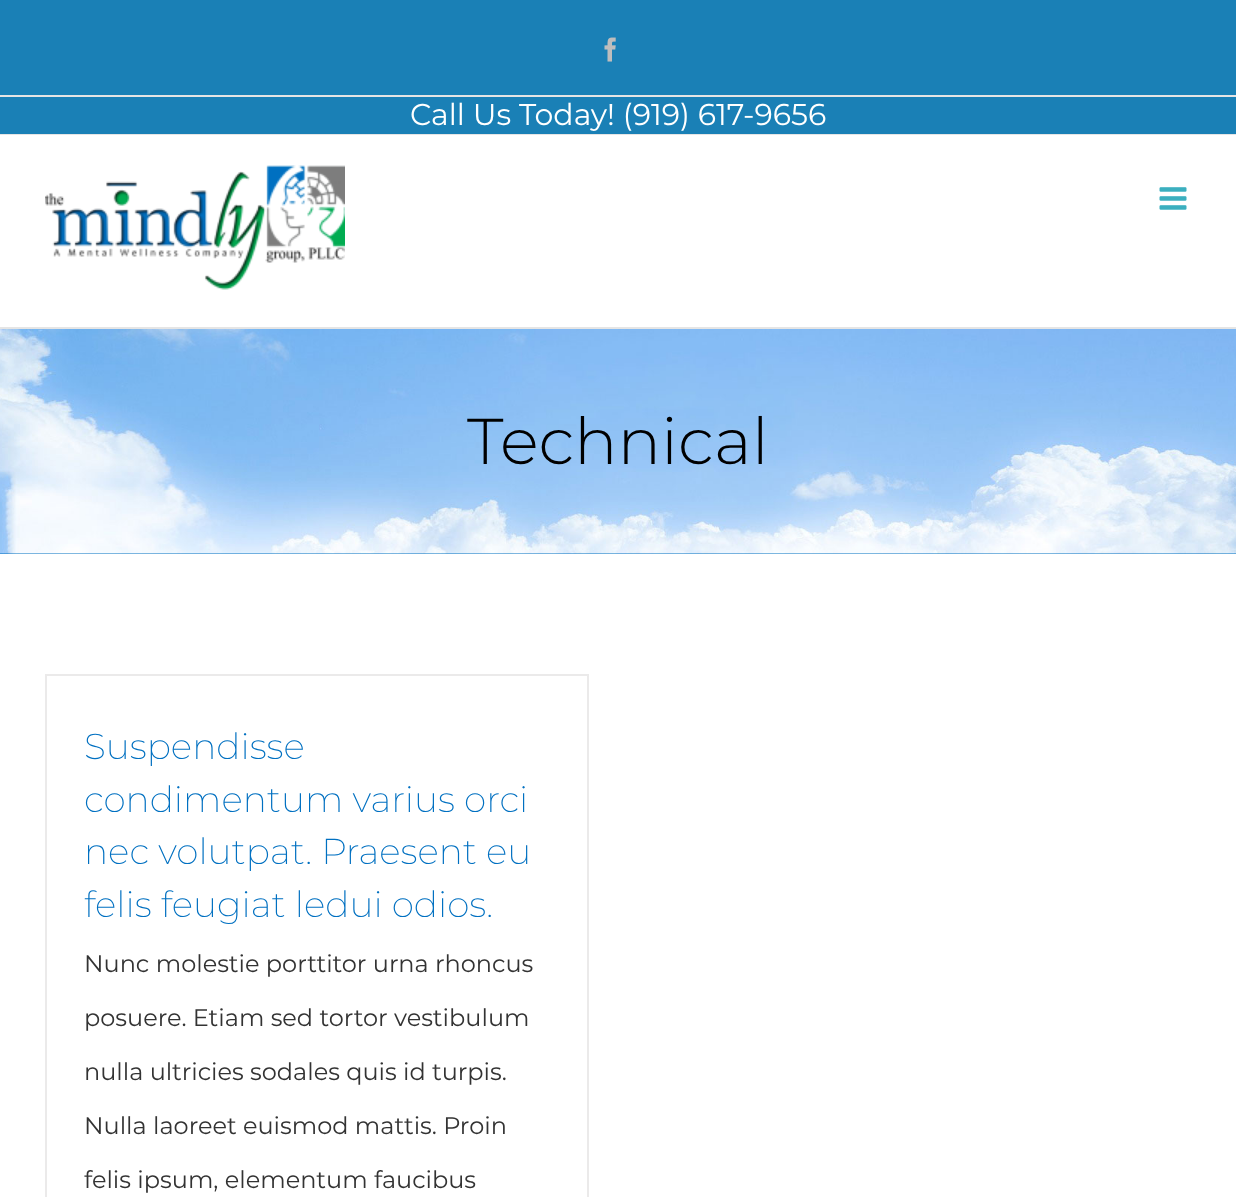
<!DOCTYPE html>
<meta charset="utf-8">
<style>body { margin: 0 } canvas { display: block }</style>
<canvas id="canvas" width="1236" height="1197"></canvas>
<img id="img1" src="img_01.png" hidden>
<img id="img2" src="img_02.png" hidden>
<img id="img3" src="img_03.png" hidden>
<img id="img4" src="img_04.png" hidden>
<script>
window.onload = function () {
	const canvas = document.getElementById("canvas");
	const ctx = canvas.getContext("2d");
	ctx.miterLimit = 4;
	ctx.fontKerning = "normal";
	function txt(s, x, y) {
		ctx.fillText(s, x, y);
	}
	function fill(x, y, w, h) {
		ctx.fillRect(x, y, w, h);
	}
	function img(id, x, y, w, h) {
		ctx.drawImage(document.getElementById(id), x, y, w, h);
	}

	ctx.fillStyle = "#FFFFFF";
	fill(0, 0, 1236, 1197);
	ctx.fillStyle = "#1A80B6";
	fill(0, 0, 1236, 134);
	ctx.fillStyle = "#E5E5E5";
	fill(0, 134, 1236, 1);
	fill(0, 95, 1236, 2);
	img("img1", 604, 37, 12, 25);
	fill(0, 327, 1236, 2);
	img("img2", 45, 165, 300, 125);
	img("img3", 1159, 187, 28, 23);
	ctx.fillStyle = "#0070C1";
	fill(0, 553, 1236, 1);
	img("img4", 0, 329, 1236, 225);
	ctx.fillStyle = "#EBEAEA";
	fill(45, 674, 543, 2);
	fill(587, 674, 2, 523);
	fill(45, 674, 2, 523);
	ctx.font = "30px Montserrat";
	ctx.fillStyle = "#FFFFFF";
	txt("Call Us Today! (919) 617-9656", 410, 125);
	ctx.font = "300 64.75px Montserrat";
	ctx.fillStyle = "#000000";
	txt("Technical", 467, 464);
	ctx.font = "200 36px Montserrat";
	ctx.fillStyle = "#0070C1";
	txt("Suspendisse", 84, 759);
	txt("condimentum varius orci", 84, 812);
	txt("nec volutpat. Praesent eu", 84, 864);
	txt("felis feugiat ledui odios.", 84, 917);
	ctx.font = "24px Montserrat";
	ctx.fillStyle = "#333333";
	txt("Nunc molestie porttitor urna rhoncus", 84, 972);
	txt("posuere. Etiam sed tortor vestibulum", 84, 1026);
	txt("nulla ultricies sodales quis id turpis.", 84, 1080);
	txt("Nulla laoreet euismod mattis. Proin", 84, 1134);
	txt("felis ipsum, elementum faucibus", 84, 1188);
};
</script>
